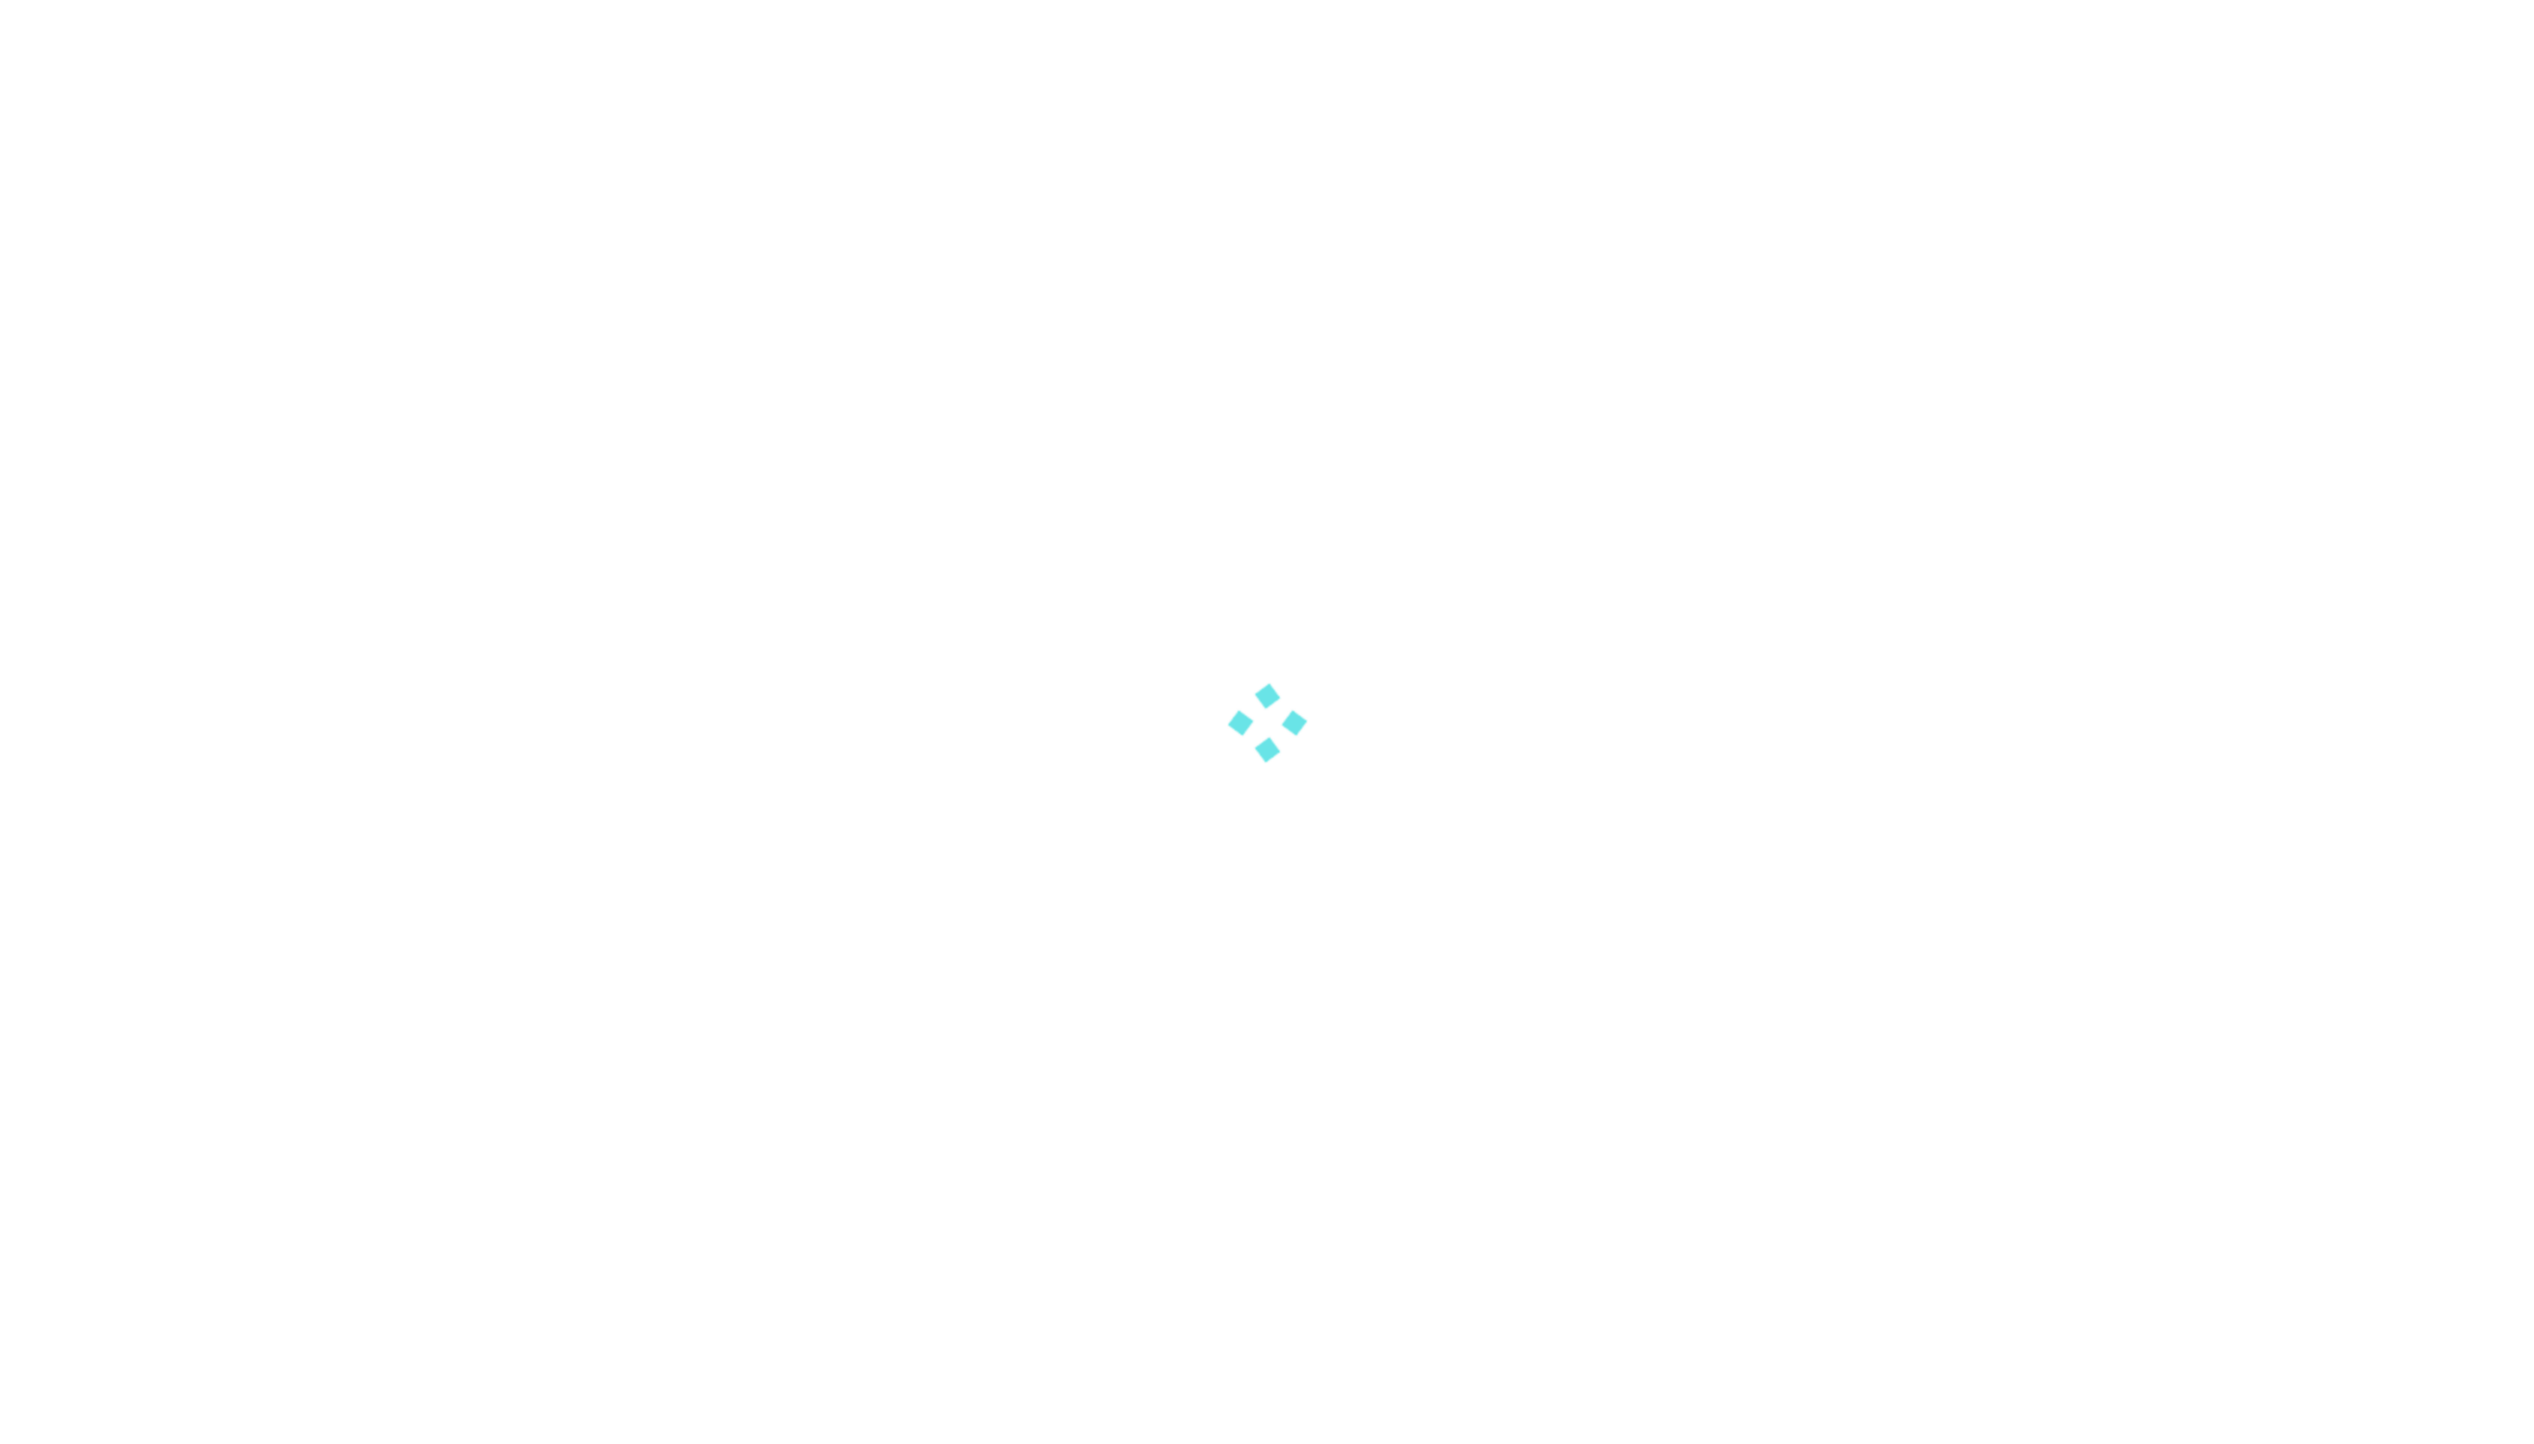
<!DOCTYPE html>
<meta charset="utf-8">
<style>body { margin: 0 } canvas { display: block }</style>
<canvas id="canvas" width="2534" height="1444"></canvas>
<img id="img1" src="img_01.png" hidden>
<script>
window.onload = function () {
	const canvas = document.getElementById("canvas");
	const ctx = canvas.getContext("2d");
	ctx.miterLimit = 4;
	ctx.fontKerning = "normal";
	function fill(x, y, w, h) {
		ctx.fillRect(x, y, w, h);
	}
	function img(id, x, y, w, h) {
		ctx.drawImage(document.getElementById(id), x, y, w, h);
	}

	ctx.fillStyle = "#FFFFFF";
	fill(0, 0, 2534, 1444);
	img("img1", 1227, 682, 81, 82);
};
</script>
